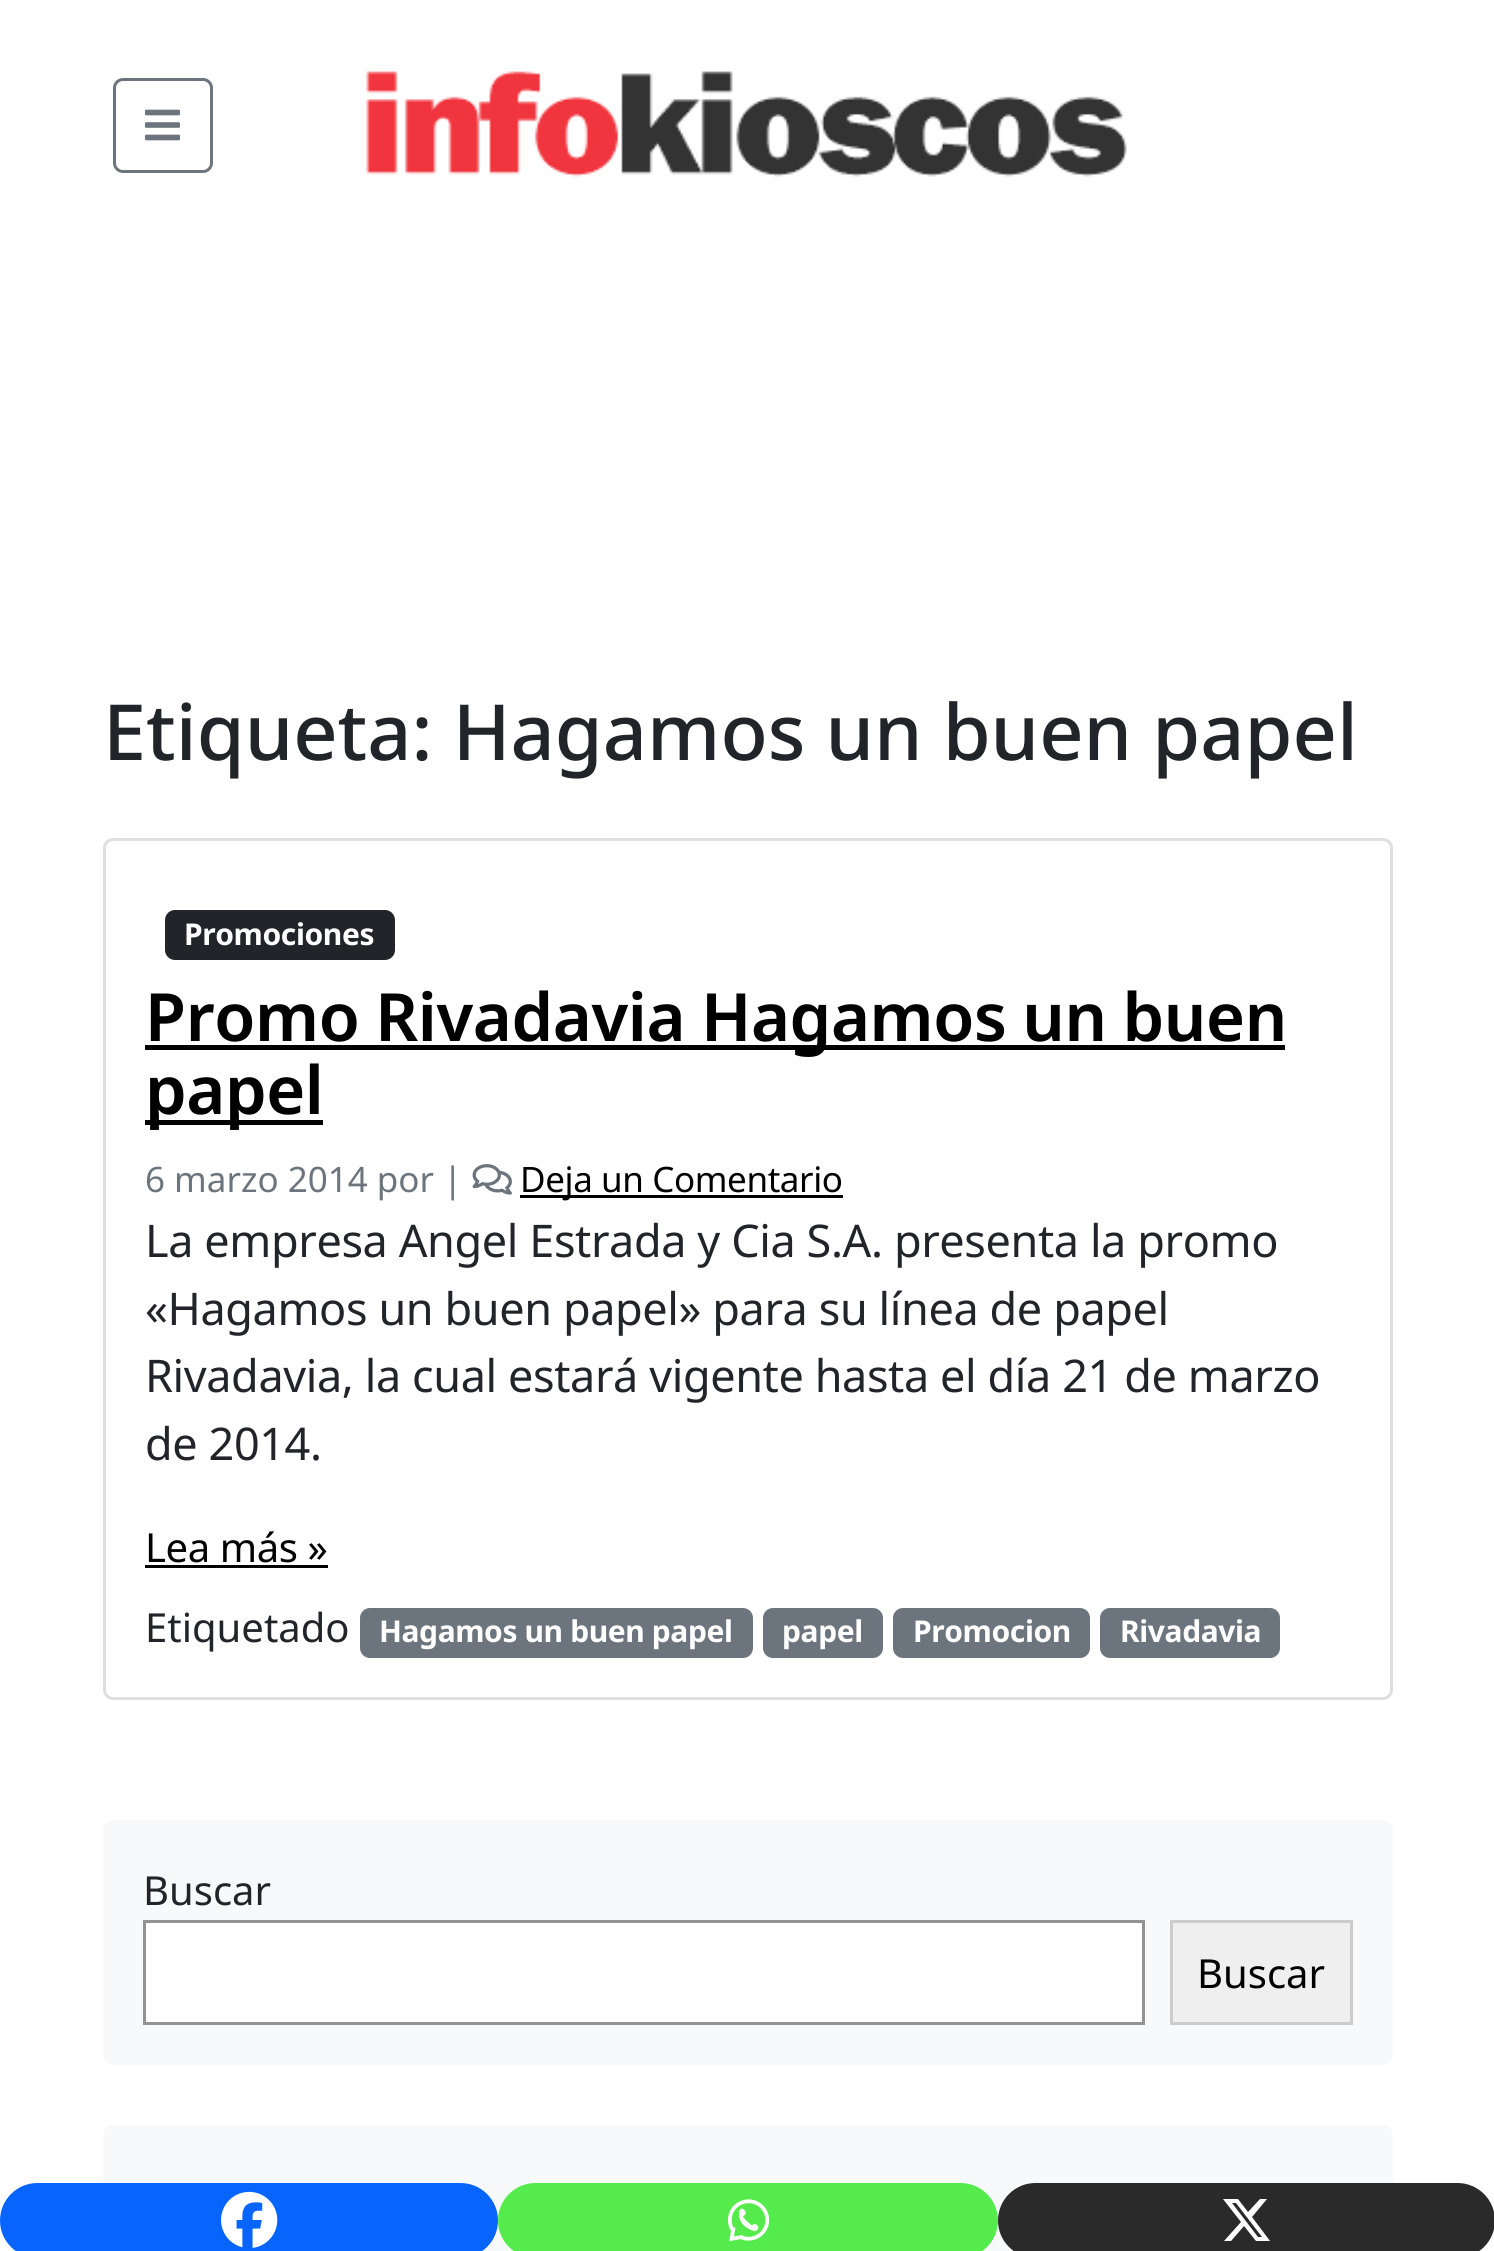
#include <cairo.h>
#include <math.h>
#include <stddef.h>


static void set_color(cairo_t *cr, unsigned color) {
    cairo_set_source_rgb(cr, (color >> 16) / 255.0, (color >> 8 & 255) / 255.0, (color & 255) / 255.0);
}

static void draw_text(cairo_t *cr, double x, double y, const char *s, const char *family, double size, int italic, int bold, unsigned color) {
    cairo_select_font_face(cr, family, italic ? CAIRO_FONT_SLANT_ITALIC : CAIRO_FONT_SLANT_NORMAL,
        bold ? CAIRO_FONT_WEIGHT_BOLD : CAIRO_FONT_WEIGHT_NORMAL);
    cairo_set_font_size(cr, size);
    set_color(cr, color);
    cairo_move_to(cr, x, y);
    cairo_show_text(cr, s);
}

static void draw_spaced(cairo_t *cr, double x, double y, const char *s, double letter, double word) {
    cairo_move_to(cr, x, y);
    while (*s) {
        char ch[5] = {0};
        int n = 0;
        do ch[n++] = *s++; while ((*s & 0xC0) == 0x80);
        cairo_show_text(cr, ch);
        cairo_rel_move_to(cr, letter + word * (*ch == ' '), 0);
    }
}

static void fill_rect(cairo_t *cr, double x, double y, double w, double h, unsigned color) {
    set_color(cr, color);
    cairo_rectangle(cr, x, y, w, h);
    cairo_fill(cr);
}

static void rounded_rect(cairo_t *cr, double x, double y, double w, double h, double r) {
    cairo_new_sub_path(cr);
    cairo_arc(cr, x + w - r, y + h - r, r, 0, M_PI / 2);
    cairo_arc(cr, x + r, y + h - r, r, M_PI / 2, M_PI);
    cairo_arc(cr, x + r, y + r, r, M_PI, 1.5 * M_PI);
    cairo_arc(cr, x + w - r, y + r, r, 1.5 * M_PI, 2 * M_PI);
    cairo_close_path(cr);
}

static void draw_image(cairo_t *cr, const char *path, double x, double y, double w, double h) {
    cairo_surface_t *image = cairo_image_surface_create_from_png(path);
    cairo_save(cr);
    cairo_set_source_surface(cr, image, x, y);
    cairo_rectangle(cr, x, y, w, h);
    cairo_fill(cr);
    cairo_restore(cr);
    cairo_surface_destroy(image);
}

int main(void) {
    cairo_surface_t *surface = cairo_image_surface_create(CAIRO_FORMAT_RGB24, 1494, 2251);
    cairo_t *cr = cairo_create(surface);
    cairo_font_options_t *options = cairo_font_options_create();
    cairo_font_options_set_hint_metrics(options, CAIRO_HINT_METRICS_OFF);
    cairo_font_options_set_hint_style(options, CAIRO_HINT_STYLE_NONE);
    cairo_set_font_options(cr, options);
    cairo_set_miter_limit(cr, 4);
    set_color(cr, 0xFFFFFF);
    cairo_paint(cr);
    rounded_rect(cr, 114.5, 79.5, 97, 92, 8.5);
    set_color(cr, 0x6C757D);
    cairo_set_line_width(cr, 3);
    cairo_stroke(cr);
    draw_image(cr, "assets/img1.png", 145, 109, 35, 32);
    draw_image(cr, "assets/img2.png", 366, 71, 761, 106);
    draw_text(cr, 103, 760, "Etiqueta: Hagamos un buen papel", "Noto Sans Medium", 77.4, 0, 0, 0x212529);
    rounded_rect(cr, 104.5, 839.5, 1287, 859, 8.5);
    set_color(cr, 0xDFDFDF);
    cairo_stroke(cr);
    set_color(cr, 0x212529);
    rounded_rect(cr, 165, 910, 230, 50, 10);
    cairo_fill(cr);
    cairo_select_font_face(cr, "Noto Sans", CAIRO_FONT_SLANT_NORMAL, CAIRO_FONT_WEIGHT_BOLD);
    cairo_set_font_size(cr, 30);
    set_color(cr, 0xFFFFFF);
    draw_spaced(cr, 184, 945, "Promociones", -0.4, 0);
    fill_rect(cr, 145, 1045, 1140, 5, 0x000000);
    cairo_select_font_face(cr, "Noto Sans SemiBold", CAIRO_FONT_SLANT_NORMAL, CAIRO_FONT_WEIGHT_NORMAL);
    cairo_set_font_size(cr, 66.5);
    draw_spaced(cr, 145, 1041, "Promo Rivadavia Hagamos un buen", -0.4, -1);
    fill_rect(cr, 145, 1120, 178, 5, 0x000000);
    draw_spaced(cr, 145, 1114, "papel", -0.4, 0);
    draw_text(cr, 145, 1192, "6 marzo 2014 por |", "Noto Sans", 35, 0, 0, 0x6C757D);
    draw_image(cr, "assets/img3.png", 472, 1164, 40, 31);
    fill_rect(cr, 520, 1195, 323, 3, 0x000000);
    draw_spaced(cr, 520, 1192, "Deja un Comentario", -0.4, 0);
    cairo_set_font_size(cr, 45);
    set_color(cr, 0x212529);
    draw_spaced(cr, 145, 1257, "La empresa Angel Estrada y Cia S.A. presenta la promo", -0.4, 0);
    draw_spaced(cr, 145, 1325, "«Hagamos un buen papel» para su línea de papel", -0.4, 0);
    draw_spaced(cr, 145, 1392, "Rivadavia, la cual estará vigente hasta el día 21 de marzo", -0.4, 0);
    draw_spaced(cr, 145, 1460, "de 2014.", -0.4, 0);
    cairo_set_font_size(cr, 40);
    set_color(cr, 0x000000);
    draw_spaced(cr, 145, 1562, "Lea más »", -0.4, 0);
    fill_rect(cr, 145, 1565, 183, 3, 0x000000);
    set_color(cr, 0xF8F9FA);
    rounded_rect(cr, 103, 2125, 1290, 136, 10);
    cairo_fill(cr);
    set_color(cr, 0x0765FE);
    rounded_rect(cr, 0, 2183, 498, 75, 37.5);
    cairo_fill(cr);
    draw_image(cr, "assets/img4.png", 221, 2191, 57, 57);
    set_color(cr, 0x55EB4C);
    rounded_rect(cr, 498, 2183, 500, 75, 37.5);
    cairo_fill(cr);
    draw_image(cr, "assets/img5.png", 727, 2199, 43, 42);
    set_color(cr, 0x2A2A2A);
    rounded_rect(cr, 998, 2183, 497, 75, 37.5);
    cairo_fill(cr);
    set_color(cr, 0xFFFFFF);
    cairo_new_path(cr);
    cairo_move_to(cr, 1260, 2199);
    cairo_line_to(cr, 1267, 2199);
    cairo_line_to(cr, 1252, 2217);
    cairo_line_to(cr, 1270, 2241);
    cairo_line_to(cr, 1256, 2241);
    cairo_line_to(cr, 1244, 2226);
    cairo_line_to(cr, 1231, 2241);
    cairo_line_to(cr, 1224, 2241);
    cairo_line_to(cr, 1241, 2222);
    cairo_line_to(cr, 1223, 2199);
    cairo_line_to(cr, 1238, 2199);
    cairo_line_to(cr, 1248, 2212);
    cairo_close_path(cr);
    cairo_move_to(cr, 1258, 2237);
    cairo_line_to(cr, 1262, 2237);
    cairo_line_to(cr, 1236, 2203);
    cairo_line_to(cr, 1232, 2203);
    cairo_close_path(cr);
    cairo_fill(cr);
    draw_text(cr, 145, 1642, "Etiquetado", "Noto Sans", 40, 0, 0, 0x212529);
    set_color(cr, 0x6C757D);
    rounded_rect(cr, 360, 1608, 393, 50, 10);
    cairo_fill(cr);
    cairo_select_font_face(cr, "Noto Sans", CAIRO_FONT_SLANT_NORMAL, CAIRO_FONT_WEIGHT_BOLD);
    cairo_set_font_size(cr, 30);
    set_color(cr, 0xFFFFFF);
    draw_spaced(cr, 379, 1642, "Hagamos un buen papel", -0.4, 0);
    set_color(cr, 0x6C757D);
    rounded_rect(cr, 763, 1608, 120, 50, 10);
    cairo_fill(cr);
    set_color(cr, 0xFFFFFF);
    draw_spaced(cr, 782, 1642, "papel", -0.4, 0);
    set_color(cr, 0x6C757D);
    rounded_rect(cr, 893, 1608, 197, 50, 10);
    cairo_fill(cr);
    set_color(cr, 0xFFFFFF);
    draw_spaced(cr, 913, 1642, "Promocion", -0.4, 0);
    set_color(cr, 0x6C757D);
    rounded_rect(cr, 1100, 1608, 180, 50, 10);
    cairo_fill(cr);
    set_color(cr, 0xFFFFFF);
    draw_spaced(cr, 1120, 1642, "Rivadavia", -0.4, 0);
    set_color(cr, 0xF8F9FA);
    rounded_rect(cr, 103, 1820, 1290, 245, 10);
    cairo_fill(cr);
    draw_text(cr, 143, 1905, "Buscar", "Noto Sans", 40, 0, 0, 0x212529);
    set_color(cr, 0xFFFFFF);
    cairo_rectangle(cr, 144.5, 1921.5, 999, 102);
    cairo_fill_preserve(cr);
    set_color(cr, 0x949494);
    cairo_stroke(cr);
    set_color(cr, 0xEFEFEF);
    cairo_rectangle(cr, 1171.5, 1921.5, 180, 102);
    cairo_fill_preserve(cr);
    set_color(cr, 0xCCCCCC);
    cairo_stroke(cr);
    draw_text(cr, 1197, 1988, "Buscar", "Noto Sans", 40, 0, 0, 0x000000);
    cairo_surface_write_to_png(surface, "output.png");
    cairo_font_options_destroy(options);
    cairo_destroy(cr);
    cairo_surface_destroy(surface);
    return 0;
}
